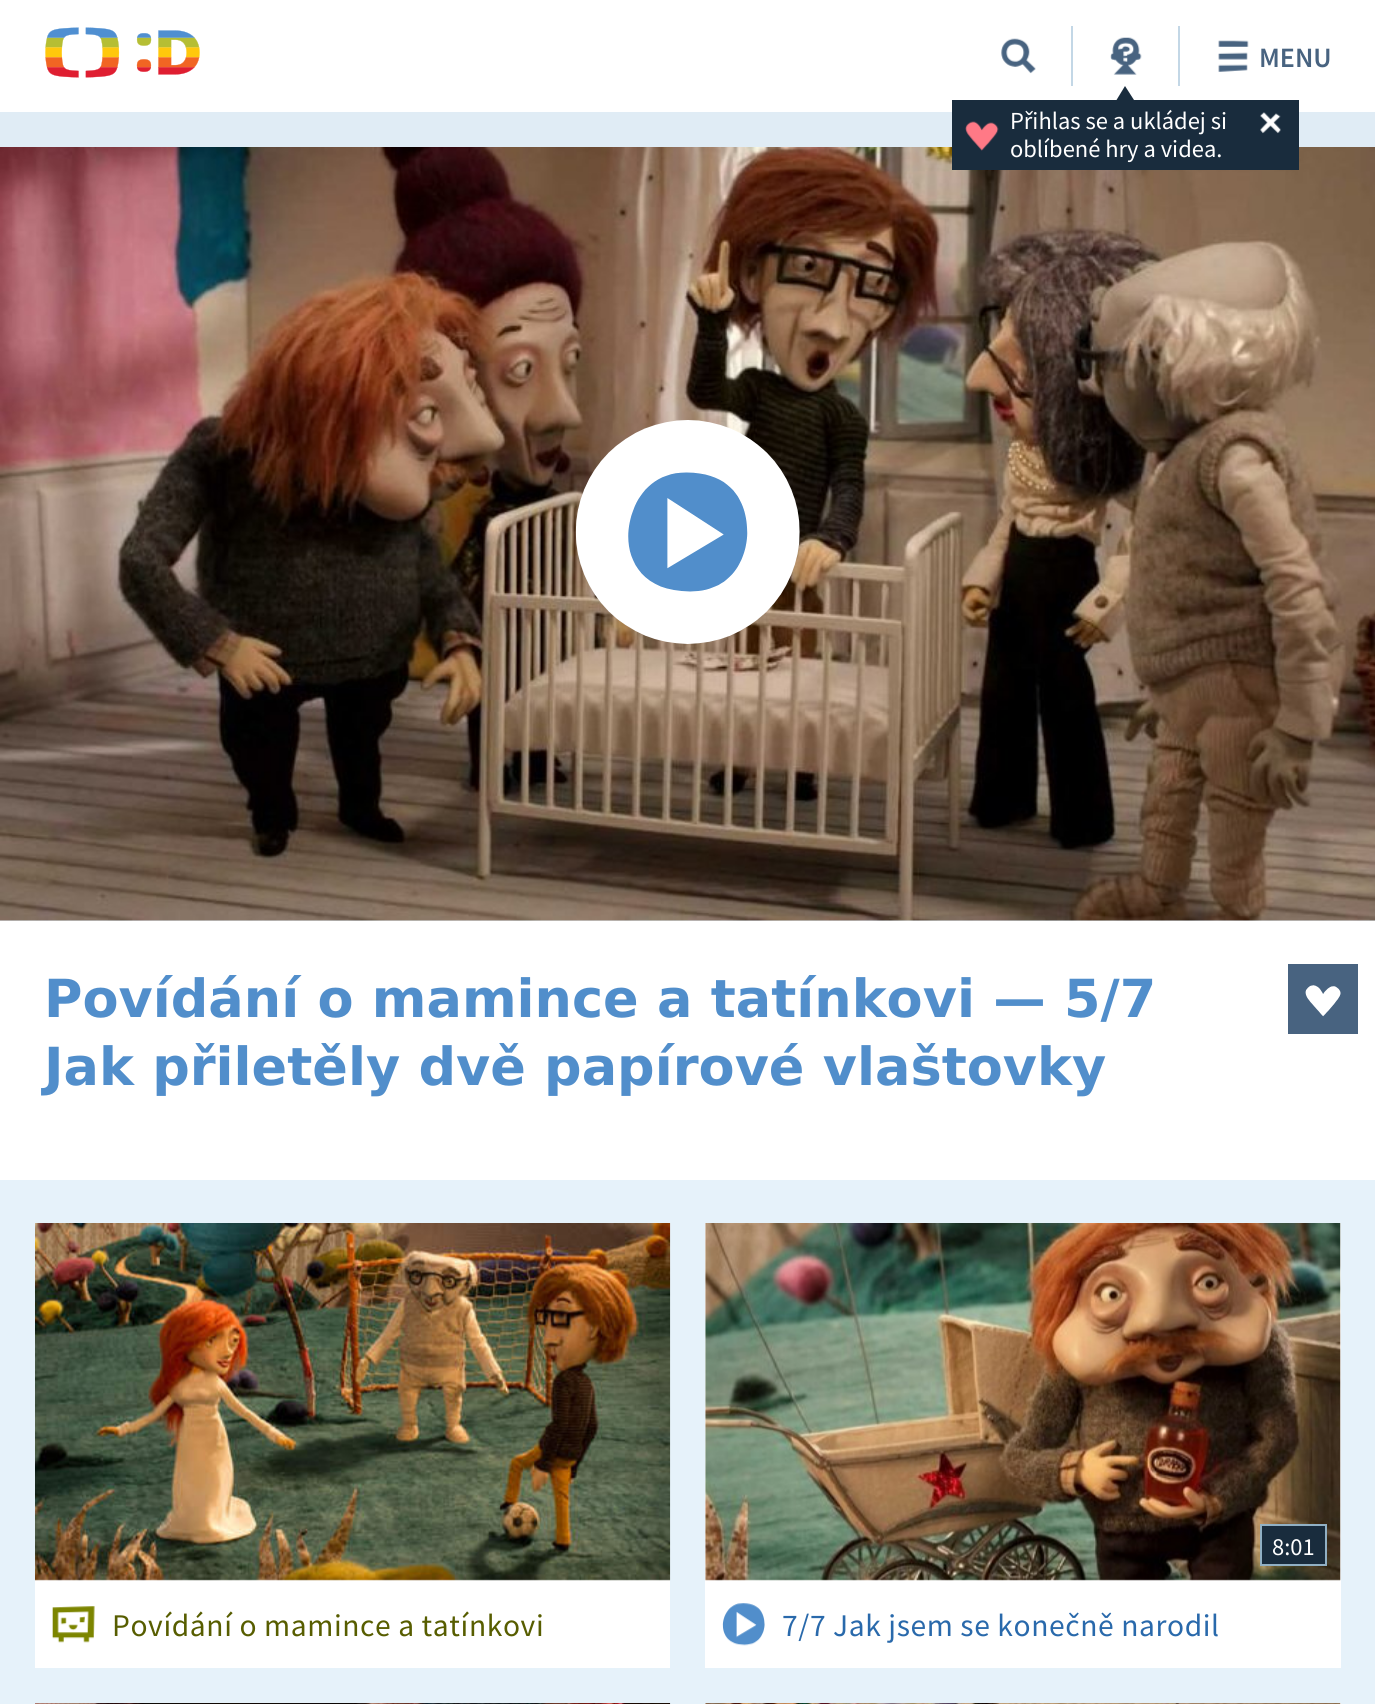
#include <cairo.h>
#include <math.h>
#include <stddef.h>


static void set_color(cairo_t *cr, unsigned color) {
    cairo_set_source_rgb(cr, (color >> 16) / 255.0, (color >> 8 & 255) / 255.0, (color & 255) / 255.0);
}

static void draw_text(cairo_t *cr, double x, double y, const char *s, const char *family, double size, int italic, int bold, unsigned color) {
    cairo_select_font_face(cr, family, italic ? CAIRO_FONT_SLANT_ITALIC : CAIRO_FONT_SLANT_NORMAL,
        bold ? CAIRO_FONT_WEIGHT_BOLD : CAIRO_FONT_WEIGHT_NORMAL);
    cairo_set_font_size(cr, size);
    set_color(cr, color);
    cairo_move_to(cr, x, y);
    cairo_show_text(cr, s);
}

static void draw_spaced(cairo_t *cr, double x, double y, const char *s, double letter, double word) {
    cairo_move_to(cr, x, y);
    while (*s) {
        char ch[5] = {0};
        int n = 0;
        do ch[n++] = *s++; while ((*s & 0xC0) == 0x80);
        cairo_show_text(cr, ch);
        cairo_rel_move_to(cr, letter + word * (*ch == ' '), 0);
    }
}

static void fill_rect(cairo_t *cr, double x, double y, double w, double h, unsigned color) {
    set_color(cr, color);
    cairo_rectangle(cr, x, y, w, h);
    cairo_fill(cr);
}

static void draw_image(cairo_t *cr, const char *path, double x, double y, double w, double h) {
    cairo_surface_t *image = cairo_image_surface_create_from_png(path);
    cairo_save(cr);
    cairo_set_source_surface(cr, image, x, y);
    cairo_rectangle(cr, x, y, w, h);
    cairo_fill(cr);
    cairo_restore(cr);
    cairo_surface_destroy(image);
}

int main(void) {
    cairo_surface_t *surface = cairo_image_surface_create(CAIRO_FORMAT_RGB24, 1375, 1704);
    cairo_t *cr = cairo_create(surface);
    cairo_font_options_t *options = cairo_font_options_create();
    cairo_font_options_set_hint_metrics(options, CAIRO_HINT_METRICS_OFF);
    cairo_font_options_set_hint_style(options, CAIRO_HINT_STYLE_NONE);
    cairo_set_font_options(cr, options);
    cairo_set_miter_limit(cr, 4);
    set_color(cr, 0xE0ECF5);
    cairo_paint(cr);
    fill_rect(cr, 0, 0, 1375, 112, 0xFFFFFF);
    draw_image(cr, "assets/img1.png", 45, 27, 155, 51);
    draw_image(cr, "assets/img2.png", 1001, 38, 35, 36);
    fill_rect(cr, 1178, 26, 2, 60, 0xC3D7E6);
    draw_image(cr, "assets/img3.png", 1218, 40, 31, 32);
    draw_text(cr, 1259, 67, "MENU", "Source Sans Pro SemiBold", 28, 0, 0, 0x486380);
    fill_rect(cr, 1071, 26, 2, 60, 0xC3D7E6);
    draw_image(cr, "assets/img4.png", 1110, 37, 32, 38);
    draw_image(cr, "assets/img7.png", 0, 147, 1375, 774);
    fill_rect(cr, 952, 100, 347, 70, 0x192C3D);
    cairo_new_path(cr);
    cairo_move_to(cr, 1134, 100);
    cairo_line_to(cr, 1116.5, 100);
    cairo_line_to(cr, 1125, 86);
    cairo_close_path(cr);
    cairo_fill(cr);
    draw_image(cr, "assets/img5.png", 965, 121, 34, 30);
    draw_text(cr, 1010, 129, "Přihlas se a ukládej si", "Source Sans Pro", 24.5, 0, 0, 0xFFFFFF);
    draw_text(cr, 1010, 157, "oblíbené hry a videa.", "Source Sans Pro", 24.5, 0, 0, 0xFFFFFF);
    draw_image(cr, "assets/img6.png", 1260, 112, 21, 22);
    draw_image(cr, "assets/img8.png", 575, 420, 225, 224);
    fill_rect(cr, 0, 921, 1375, 259, 0xFFFFFF);
    draw_text(cr, 44, 1017, "Povídání o mamince a tatínkovi — 5/7", "DejaVu Sans", 52.5, 0, 1, 0x518ECB);
    draw_text(cr, 44, 1085, "Jak přiletěly dvě papírové vlaštovky", "DejaVu Sans", 52.5, 0, 1, 0x518ECB);
    fill_rect(cr, 1288, 964, 70, 70, 0x486380);
    draw_image(cr, "assets/img9.png", 1305, 985, 36, 32);
    fill_rect(cr, 0, 1180, 1375, 524, 0xE6F2FA);
    fill_rect(cr, 35, 1580, 635, 88, 0xFFFFFF);
    draw_image(cr, "assets/img10.png", 35, 1223, 636, 358);
    draw_image(cr, "assets/img11.png", 52, 1606, 43, 37);
    cairo_select_font_face(cr, "Source Sans Pro", CAIRO_FONT_SLANT_NORMAL, CAIRO_FONT_WEIGHT_NORMAL);
    cairo_set_font_size(cr, 31.5);
    set_color(cr, 0x575D00);
    draw_spaced(cr, 112, 1636, "Povídání o mamince a tatínkovi", 0.6, 0);
    fill_rect(cr, 705, 1223, 636, 445, 0xFFFFFF);
    draw_image(cr, "assets/img12.png", 705, 1223, 636, 358);
    set_color(cr, 0x192C3D);
    cairo_rectangle(cr, 1261, 1525, 65, 40);
    cairo_fill_preserve(cr);
    set_color(cr, 0x91B0C4);
    cairo_stroke(cr);
    draw_text(cr, 1272, 1555, "8:01", "Source Sans Pro", 24.5, 0, 0, 0xFFFFFF);
    draw_image(cr, "assets/img13.png", 722, 1603, 43, 43);
    cairo_set_font_size(cr, 31.5);
    set_color(cr, 0x2969AB);
    draw_spaced(cr, 782, 1636, "7/7 Jak jsem se konečně narodil", 0.6, 0);
    draw_image(cr, "assets/img14.png", 35, 1703, 636, 1);
    fill_rect(cr, 705, 1703, 636, 1, 0xFFFFFF);
    draw_image(cr, "assets/img15.png", 705, 1703, 636, 1);
    cairo_surface_write_to_png(surface, "output.png");
    cairo_font_options_destroy(options);
    cairo_destroy(cr);
    cairo_surface_destroy(surface);
    return 0;
}
